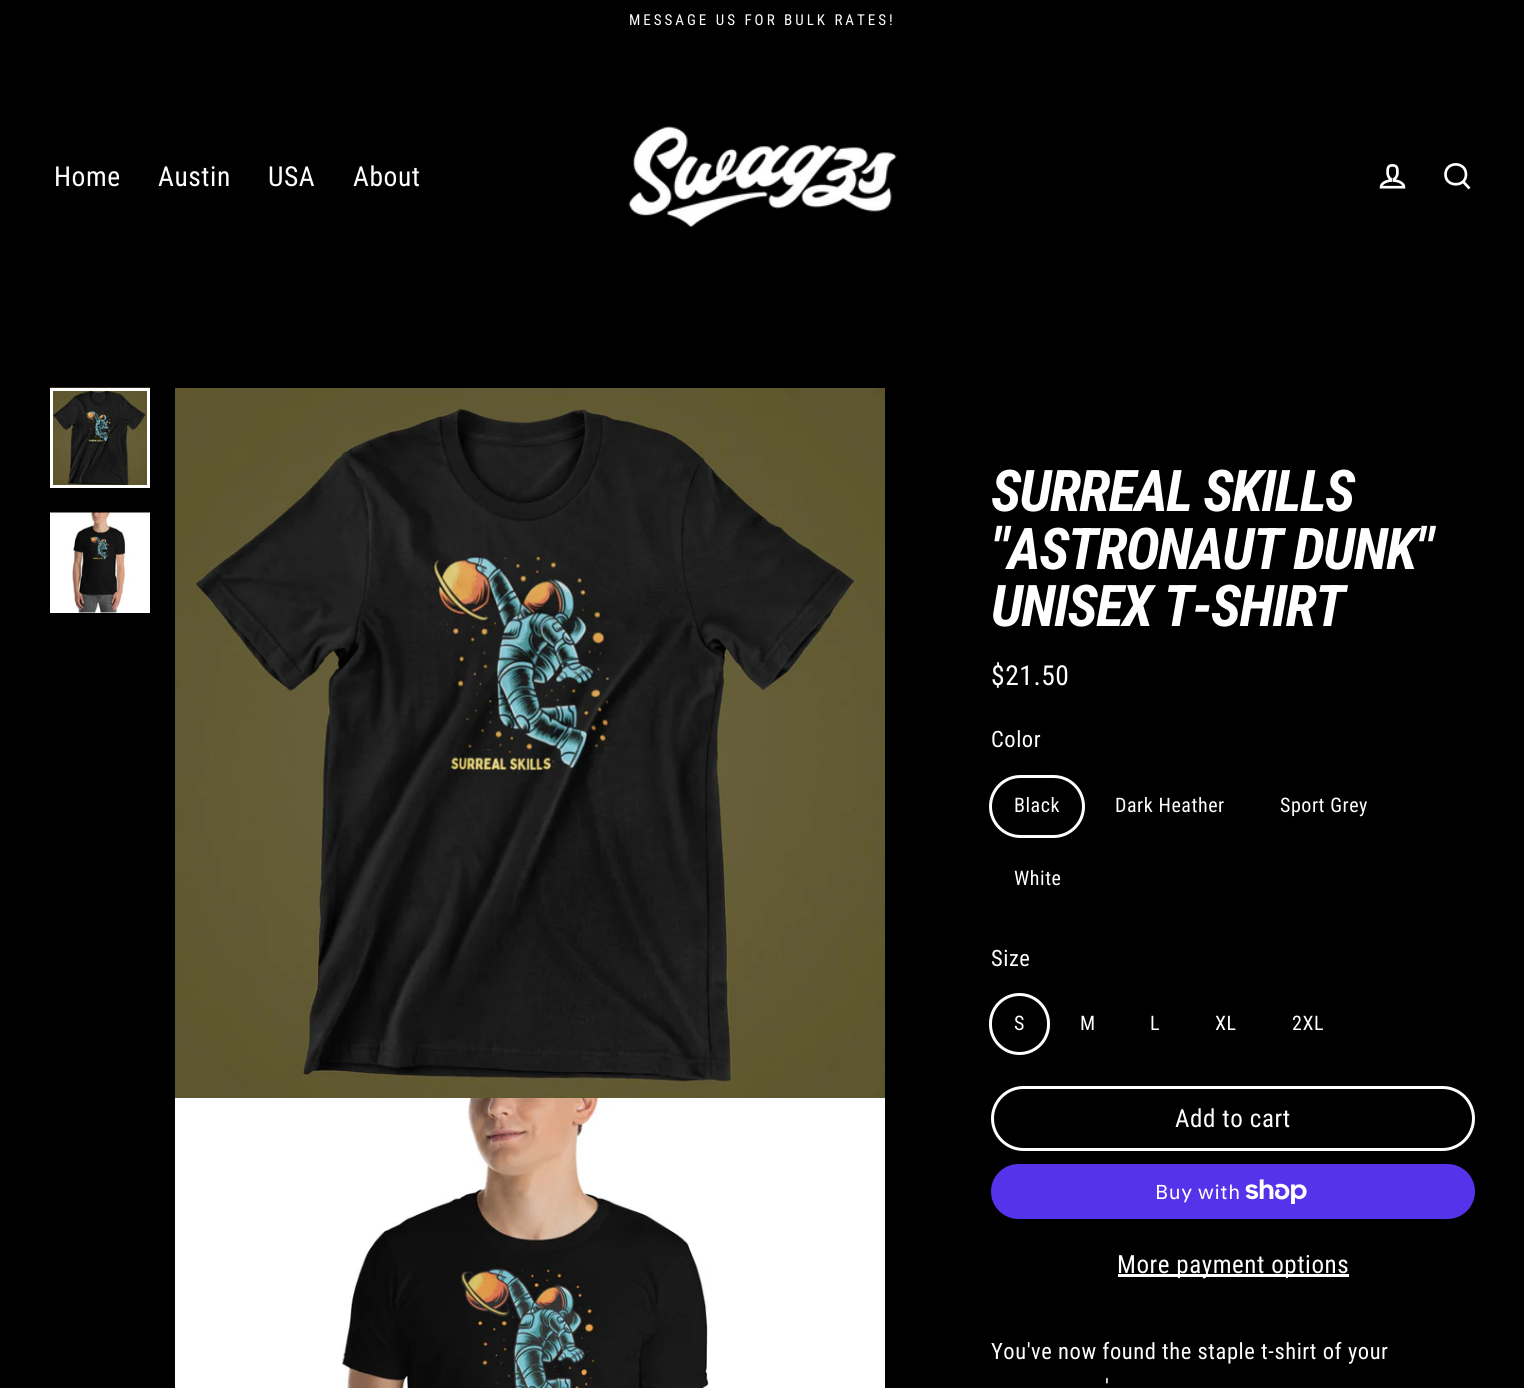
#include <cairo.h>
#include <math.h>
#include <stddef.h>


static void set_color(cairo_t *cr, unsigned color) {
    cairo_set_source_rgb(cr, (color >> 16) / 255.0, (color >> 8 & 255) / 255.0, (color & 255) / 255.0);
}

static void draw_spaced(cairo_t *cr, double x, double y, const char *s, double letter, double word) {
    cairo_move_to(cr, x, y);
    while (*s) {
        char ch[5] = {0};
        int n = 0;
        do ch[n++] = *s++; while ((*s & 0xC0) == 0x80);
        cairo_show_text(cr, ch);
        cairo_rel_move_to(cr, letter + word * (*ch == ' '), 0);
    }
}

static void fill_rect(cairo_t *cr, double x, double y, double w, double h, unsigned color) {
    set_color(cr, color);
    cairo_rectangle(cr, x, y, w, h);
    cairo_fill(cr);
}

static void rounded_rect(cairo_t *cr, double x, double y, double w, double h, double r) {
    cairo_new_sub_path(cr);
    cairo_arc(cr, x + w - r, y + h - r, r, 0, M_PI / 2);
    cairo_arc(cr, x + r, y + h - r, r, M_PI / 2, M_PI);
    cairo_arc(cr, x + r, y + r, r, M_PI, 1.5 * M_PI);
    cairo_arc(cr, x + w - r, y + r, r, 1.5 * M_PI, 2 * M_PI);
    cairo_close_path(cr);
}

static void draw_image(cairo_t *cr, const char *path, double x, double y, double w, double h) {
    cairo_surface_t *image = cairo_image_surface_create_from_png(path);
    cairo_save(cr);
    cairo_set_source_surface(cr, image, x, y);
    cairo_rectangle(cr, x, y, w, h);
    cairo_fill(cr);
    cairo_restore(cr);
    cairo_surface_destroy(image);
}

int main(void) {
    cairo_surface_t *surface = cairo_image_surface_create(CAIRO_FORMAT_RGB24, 1524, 1388);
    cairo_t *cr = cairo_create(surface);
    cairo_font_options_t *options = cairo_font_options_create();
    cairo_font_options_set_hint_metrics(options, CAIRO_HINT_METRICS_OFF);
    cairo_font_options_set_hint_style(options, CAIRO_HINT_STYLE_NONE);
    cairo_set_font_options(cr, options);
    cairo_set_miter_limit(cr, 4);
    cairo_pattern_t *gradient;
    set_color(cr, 0x000000);
    cairo_paint(cr);
    cairo_select_font_face(cr, "Roboto Condensed", CAIRO_FONT_SLANT_NORMAL, CAIRO_FONT_WEIGHT_NORMAL);
    cairo_set_font_size(cr, 15);
    set_color(cr, 0xFFFFFF);
    draw_spaced(cr, 629, 25, "MESSAGE US FOR BULK RATES!", 3, 0);
    cairo_set_font_size(cr, 27.5);
    draw_spaced(cr, 54, 186, "Home", 0.55, 0);
    draw_spaced(cr, 158, 186, "Austin", 0.55, 0);
    draw_spaced(cr, 268, 186, "USA", 0.55, 0);
    draw_spaced(cr, 353, 186, "About", 0.55, 0);
    draw_image(cr, "assets/img1.png", 628, 126, 269, 102);
    draw_image(cr, "assets/img2.png", 1379, 164, 27, 25);
    cairo_new_path(cr);
    cairo_move_to(cr, 1466, 174.5);
    cairo_curve_to(cr, 1466, 187.5, 1445.5, 187.5, 1445.5, 174.5);
    cairo_curve_to(cr, 1445.5, 161, 1466, 161, 1466, 174.5);
    cairo_close_path(cr);
    cairo_move_to(cr, 1469.5, 188.5);
    cairo_line_to(cr, 1463, 181.5);
    cairo_set_line_width(cr, 2.7);
    cairo_stroke(cr);
    draw_image(cr, "assets/img3.png", 50, 387, 100, 98);
    cairo_rectangle(cr, 51.5, 389.5, 97, 97);
    cairo_set_line_width(cr, 3);
    cairo_stroke(cr);
    gradient = cairo_pattern_create_linear(47, 527, 453, 598);
    cairo_pattern_add_color_stop_rgba(gradient, 0.4, 1, 1, 1, 1);
    cairo_pattern_add_color_stop_rgba(gradient, 0.63, 0.969, 0.969, 0.969, 1);
    cairo_pattern_add_color_stop_rgba(gradient, 0.79, 1, 1, 1, 1);
    cairo_set_source(cr, gradient);
    cairo_pattern_destroy(gradient);
    cairo_rectangle(cr, 50, 612, 100, 1);
    cairo_fill(cr);
    draw_image(cr, "assets/img4.png", 50, 512, 100, 101);
    draw_image(cr, "assets/img5.png", 175, 388, 710, 710);
    gradient = cairo_pattern_create_linear(157, 1199, 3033, 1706);
    cairo_pattern_add_color_stop_rgba(gradient, 0.4, 1, 1, 1, 1);
    cairo_pattern_add_color_stop_rgba(gradient, 0.63, 0.969, 0.969, 0.969, 1);
    cairo_pattern_add_color_stop_rgba(gradient, 0.79, 1, 1, 1, 1);
    cairo_set_source(cr, gradient);
    cairo_pattern_destroy(gradient);
    cairo_rectangle(cr, 175, 1098, 710, 290);
    cairo_fill(cr);
    draw_image(cr, "assets/img6.png", 341, 1098, 368, 290);
    cairo_select_font_face(cr, "Roboto Condensed", CAIRO_FONT_SLANT_ITALIC, CAIRO_FONT_WEIGHT_BOLD);
    cairo_set_font_size(cr, 57.5);
    set_color(cr, 0xFFFFFF);
    draw_spaced(cr, 991, 511, "SURREAL SKILLS", -1.5, 0);
    draw_spaced(cr, 991, 569, "\"ASTRONAUT DUNK\"", -1.5, 0);
    draw_spaced(cr, 991, 626, "UNISEX T-SHIRT", -1.5, 0);
    cairo_select_font_face(cr, "Roboto Condensed", CAIRO_FONT_SLANT_NORMAL, CAIRO_FONT_WEIGHT_NORMAL);
    cairo_set_font_size(cr, 27.5);
    draw_spaced(cr, 991, 685, "$21.50", 0.55, 0);
    cairo_set_font_size(cr, 22.5);
    draw_spaced(cr, 991, 747, "Color", 0.55, 0);
    rounded_rect(cr, 990.5, 776.5, 93, 60, 30);
    cairo_stroke(cr);
    cairo_set_font_size(cr, 20);
    draw_spaced(cr, 1014, 812, "Black", 0.55, 0);
    draw_spaced(cr, 1115, 812, "Dark Heather", 0.55, 0);
    draw_spaced(cr, 1280, 812, "Sport Grey", 0.55, 0);
    draw_spaced(cr, 1014, 885, "White", 0.55, 0);
    cairo_set_font_size(cr, 22.5);
    draw_spaced(cr, 991, 966, "Size", 0.55, 0);
    rounded_rect(cr, 990.5, 994.5, 58, 59, 29);
    cairo_stroke(cr);
    cairo_set_font_size(cr, 20);
    draw_spaced(cr, 1014, 1030, "S", 0.55, 0);
    draw_spaced(cr, 1080, 1030, "M", 0.55, 0);
    draw_spaced(cr, 1150, 1030, "L", 0.55, 0);
    draw_spaced(cr, 1215, 1030, "XL", 0.55, 0);
    draw_spaced(cr, 1292, 1030, "2XL", 0.55, 0);
    rounded_rect(cr, 992.5, 1087.5, 481, 62, 31);
    cairo_stroke(cr);
    cairo_set_font_size(cr, 25);
    draw_spaced(cr, 1175, 1127, "Add to cart", 0.6, 0);
    set_color(cr, 0x5433EB);
    rounded_rect(cr, 991, 1164, 484, 55, 27.5);
    cairo_fill(cr);
    cairo_select_font_face(cr, "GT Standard", CAIRO_FONT_SLANT_NORMAL, CAIRO_FONT_WEIGHT_NORMAL);
    cairo_set_font_size(cr, 20);
    set_color(cr, 0xFFFFFF);
    draw_spaced(cr, 1155, 1199, "Buy with", 0.55, 0);
    draw_image(cr, "assets/img7.png", 1245, 1179, 62, 25);
    fill_rect(cr, 1118, 1274, 231, 3, 0xFFFFFF);
    cairo_select_font_face(cr, "Roboto Condensed", CAIRO_FONT_SLANT_NORMAL, CAIRO_FONT_WEIGHT_NORMAL);
    cairo_set_font_size(cr, 25);
    draw_spaced(cr, 1117, 1273, "More payment options", 0.55, 0);
    cairo_set_font_size(cr, 22.5);
    draw_spaced(cr, 991, 1359, "You've now found the staple t-shirt of your", 0.55, 0);
    draw_spaced(cr, 1105, 1395, "'", 0.55, 0);
    cairo_surface_write_to_png(surface, "output.png");
    cairo_font_options_destroy(options);
    cairo_destroy(cr);
    cairo_surface_destroy(surface);
    return 0;
}
